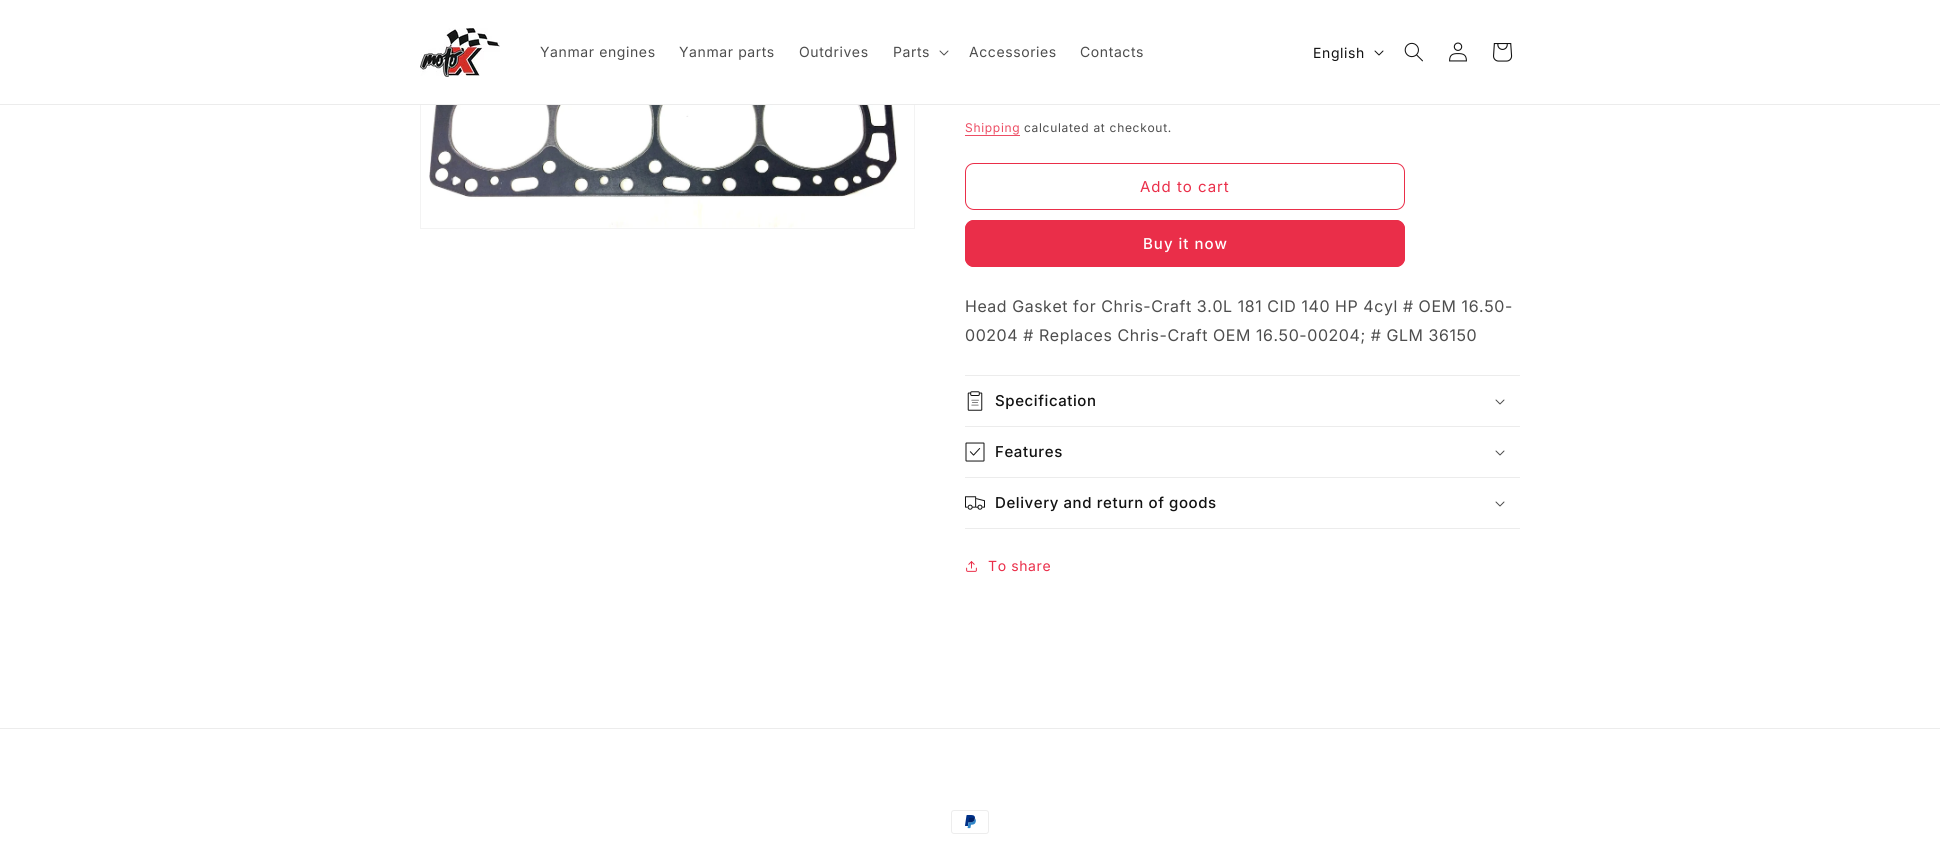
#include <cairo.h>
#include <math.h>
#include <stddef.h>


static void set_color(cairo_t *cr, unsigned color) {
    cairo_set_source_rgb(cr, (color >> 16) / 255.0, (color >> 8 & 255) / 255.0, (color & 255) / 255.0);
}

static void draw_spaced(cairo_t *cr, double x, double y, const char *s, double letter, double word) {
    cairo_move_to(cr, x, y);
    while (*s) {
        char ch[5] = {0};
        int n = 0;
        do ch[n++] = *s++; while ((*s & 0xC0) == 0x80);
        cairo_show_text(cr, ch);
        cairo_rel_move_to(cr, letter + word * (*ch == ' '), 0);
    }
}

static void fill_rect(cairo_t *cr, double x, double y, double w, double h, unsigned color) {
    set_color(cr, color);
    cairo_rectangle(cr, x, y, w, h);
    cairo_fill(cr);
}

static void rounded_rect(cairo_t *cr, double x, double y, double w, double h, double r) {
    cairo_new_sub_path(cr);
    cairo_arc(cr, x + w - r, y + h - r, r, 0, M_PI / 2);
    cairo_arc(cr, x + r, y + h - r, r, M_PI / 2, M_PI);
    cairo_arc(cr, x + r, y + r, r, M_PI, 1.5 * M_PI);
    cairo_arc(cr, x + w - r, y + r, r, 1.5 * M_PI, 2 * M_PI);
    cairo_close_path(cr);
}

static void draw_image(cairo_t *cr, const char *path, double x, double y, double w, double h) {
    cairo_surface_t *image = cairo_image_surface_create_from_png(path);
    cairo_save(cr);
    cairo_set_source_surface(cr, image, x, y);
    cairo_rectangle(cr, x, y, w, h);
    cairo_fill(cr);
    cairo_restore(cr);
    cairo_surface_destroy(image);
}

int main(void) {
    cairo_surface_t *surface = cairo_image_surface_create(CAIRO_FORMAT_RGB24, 1940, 845);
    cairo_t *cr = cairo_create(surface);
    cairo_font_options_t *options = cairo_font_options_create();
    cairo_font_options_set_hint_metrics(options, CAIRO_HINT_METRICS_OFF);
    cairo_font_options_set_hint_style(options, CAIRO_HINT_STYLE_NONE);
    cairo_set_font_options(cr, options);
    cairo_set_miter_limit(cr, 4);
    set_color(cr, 0xFFFFFF);
    cairo_paint(cr);
    cairo_rectangle(cr, 420.5, 30.5, 494, 198);
    set_color(cr, 0xF3F3F3);
    cairo_set_line_width(cr, 1);
    cairo_stroke(cr);
    fill_rect(cr, 420, 30, 495, 74, 0xFFFFFF);
    fill_rect(cr, 0, 104, 1940, 1, 0xECECEC);
    draw_image(cr, "assets/img1.png", 420, 28, 80, 49);
    cairo_select_font_face(cr, "Inter", CAIRO_FONT_SLANT_NORMAL, CAIRO_FONT_WEIGHT_NORMAL);
    cairo_set_font_size(cr, 14);
    set_color(cr, 0x4D4D4D);
    draw_spaced(cr, 540, 57, "Yanmar engines", 0.6, 0);
    draw_spaced(cr, 679, 57, "Yanmar parts", 0.6, 0);
    draw_spaced(cr, 799, 57, "Outdrives", 0.6, 0);
    draw_spaced(cr, 893, 57, "Parts", 0.6, 0);
    draw_image(cr, "assets/img2.png", 939, 50, 10, 6);
    draw_spaced(cr, 969, 57, "Accessories", 0.6, 0);
    draw_spaced(cr, 1080, 57, "Contacts", 0.6, 0);
    set_color(cr, 0x121212);
    draw_spaced(cr, 1313, 58, "English", 0.6, 0);
    draw_image(cr, "assets/img3.png", 1374, 50, 10, 6);
    draw_image(cr, "assets/img4.png", 1404, 42, 19, 20);
    draw_image(cr, "assets/img5.png", 1449, 42, 18, 20);
    draw_image(cr, "assets/img6.png", 1493, 43, 20, 19);
    draw_image(cr, "assets/img7.png", 429, 105, 469, 123);
    cairo_set_font_size(cr, 12);
    set_color(cr, 0xED4D64);
    draw_spaced(cr, 965, 132, "Shipping", 0.7, 0);
    fill_rect(cr, 965, 135, 55, 1, 0xED4D64);
    set_color(cr, 0x4D4D4D);
    draw_spaced(cr, 1024, 132, "calculated at checkout.", 0.7, 0);
    rounded_rect(cr, 965.5, 163.5, 439, 46, 8.5);
    set_color(cr, 0xEA2E49);
    cairo_stroke(cr);
    cairo_set_font_size(cr, 15);
    draw_spaced(cr, 1140, 192, "Add to cart", 1, 0);
    rounded_rect(cr, 965, 220, 440, 47, 9);
    cairo_fill(cr);
    rounded_rect(cr, 965.5, 220.5, 439, 46, 8.5);
    cairo_stroke(cr);
    cairo_select_font_face(cr, "Inter Medium", CAIRO_FONT_SLANT_NORMAL, CAIRO_FONT_WEIGHT_NORMAL);
    set_color(cr, 0xFFFFFF);
    draw_spaced(cr, 1143, 249, "Buy it now", 1, 0);
    cairo_select_font_face(cr, "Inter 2", CAIRO_FONT_SLANT_NORMAL, CAIRO_FONT_WEIGHT_NORMAL);
    cairo_set_font_size(cr, 16);
    set_color(cr, 0x4D4D4D);
    draw_spaced(cr, 965, 312, "Head Gasket for Chris-Craft 3.0L 181 CID 140 HP 4cyl # OEM 16.50-", 0.6, 0);
    draw_spaced(cr, 965, 341, "00204 # Replaces Chris-Craft OEM 16.50-00204; # GLM 36150", 0.6, 0);
    fill_rect(cr, 965, 375, 555, 1, 0xECECEC);
    fill_rect(cr, 965, 426, 555, 1, 0xECECEC);
    draw_image(cr, "assets/img8.png", 967, 391, 16, 20);
    cairo_select_font_face(cr, "Inter Medium", CAIRO_FONT_SLANT_NORMAL, CAIRO_FONT_WEIGHT_NORMAL);
    cairo_set_font_size(cr, 15);
    set_color(cr, 0x121212);
    draw_spaced(cr, 995, 406, "Specification", 0.6, 0);
    draw_image(cr, "assets/img2.png", 1495, 399, 10, 6);
    fill_rect(cr, 965, 477, 555, 1, 0xECECEC);
    draw_image(cr, "assets/img9.png", 965, 442, 20, 20);
    set_color(cr, 0x121212);
    draw_spaced(cr, 995, 457, "Features", 0.6, 0);
    draw_image(cr, "assets/img2.png", 1495, 450, 10, 6);
    fill_rect(cr, 965, 528, 555, 1, 0xECECEC);
    draw_image(cr, "assets/img10.png", 965, 496, 20, 14);
    set_color(cr, 0x121212);
    draw_spaced(cr, 995, 508, "Delivery and return of goods", 0.6, 0);
    draw_image(cr, "assets/img2.png", 1495, 501, 10, 6);
    draw_image(cr, "assets/img11.png", 966, 561, 11, 11);
    cairo_select_font_face(cr, "Inter", CAIRO_FONT_SLANT_NORMAL, CAIRO_FONT_WEIGHT_NORMAL);
    cairo_set_font_size(cr, 14);
    set_color(cr, 0xEA2E49);
    draw_spaced(cr, 988, 571, "To share", 0.6, 0);
    fill_rect(cr, 0, 728, 1940, 1, 0xECECEC);
    draw_image(cr, "assets/img12.png", 951, 810, 38, 24);
    cairo_surface_write_to_png(surface, "output.png");
    cairo_font_options_destroy(options);
    cairo_destroy(cr);
    cairo_surface_destroy(surface);
    return 0;
}
